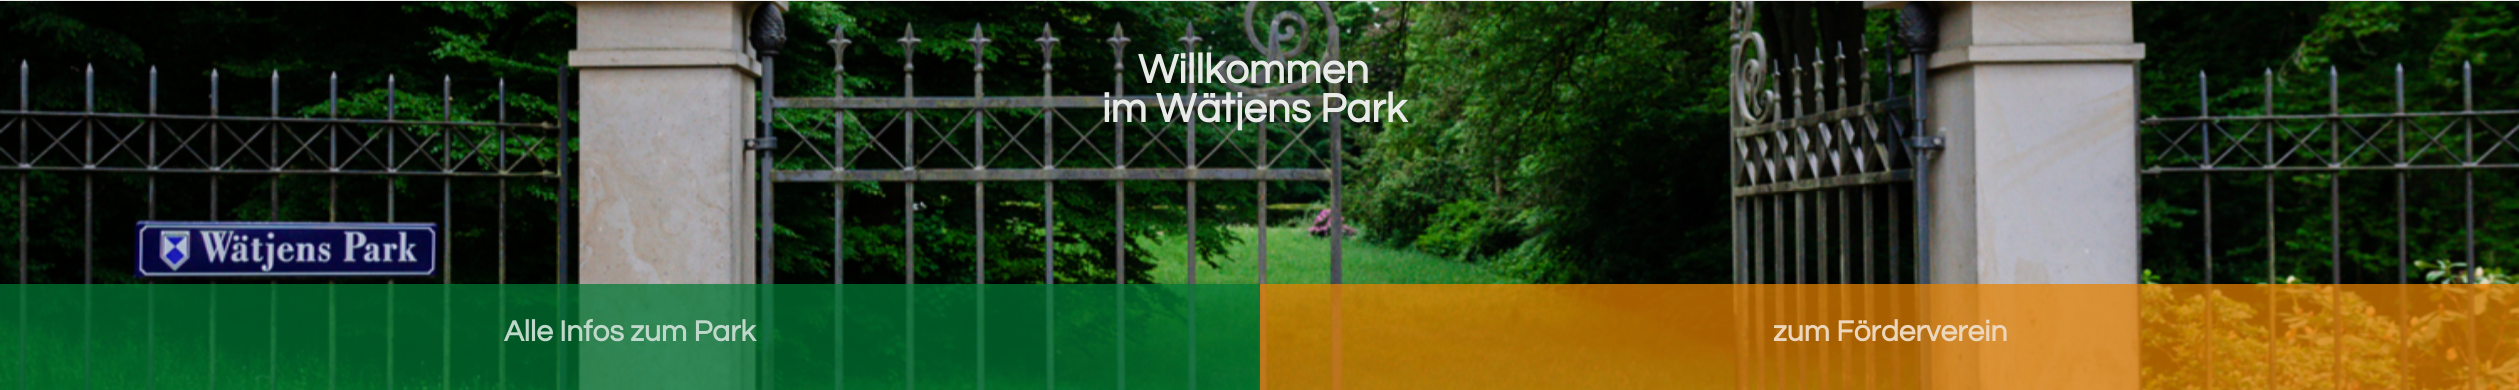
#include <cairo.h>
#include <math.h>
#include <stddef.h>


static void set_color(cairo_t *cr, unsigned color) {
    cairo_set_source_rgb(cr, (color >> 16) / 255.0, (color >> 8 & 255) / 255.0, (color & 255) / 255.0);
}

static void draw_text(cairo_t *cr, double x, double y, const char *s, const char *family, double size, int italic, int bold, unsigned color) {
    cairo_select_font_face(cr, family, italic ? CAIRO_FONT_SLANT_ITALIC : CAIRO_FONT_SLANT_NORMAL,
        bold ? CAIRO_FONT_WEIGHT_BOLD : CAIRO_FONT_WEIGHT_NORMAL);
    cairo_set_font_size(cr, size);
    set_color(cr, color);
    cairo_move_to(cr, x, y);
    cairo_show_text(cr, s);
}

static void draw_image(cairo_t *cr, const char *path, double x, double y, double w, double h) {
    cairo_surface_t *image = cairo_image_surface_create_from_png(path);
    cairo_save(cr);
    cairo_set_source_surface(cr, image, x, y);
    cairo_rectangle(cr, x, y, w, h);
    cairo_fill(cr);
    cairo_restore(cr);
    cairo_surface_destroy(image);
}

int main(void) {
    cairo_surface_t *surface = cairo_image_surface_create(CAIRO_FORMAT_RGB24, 2519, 390);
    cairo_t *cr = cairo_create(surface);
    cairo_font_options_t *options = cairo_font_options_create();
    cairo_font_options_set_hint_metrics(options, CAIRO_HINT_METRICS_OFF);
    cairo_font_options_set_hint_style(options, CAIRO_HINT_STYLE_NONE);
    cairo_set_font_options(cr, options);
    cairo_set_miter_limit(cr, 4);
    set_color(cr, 0xEBEBEB);
    cairo_paint(cr);
    draw_image(cr, "assets/img1.png", 0, 1, 2519, 389);
    draw_text(cr, 1138, 83, "Willkommen", "Questrial", 42, 0, 1, 0xE8EBE8);
    draw_text(cr, 1102, 122, "im Wätjens Park", "Questrial", 42, 0, 1, 0xE8EBE8);
    cairo_set_source_rgba(cr, 0, 0.475, 0.204, 0.72);
    cairo_rectangle(cr, 0, 284, 1260, 106);
    cairo_fill(cr);
    draw_text(cr, 504, 341, "Alle Infos zum Park", "Questrial", 30, 0, 1, 0xBFD8CA);
    cairo_set_source_rgba(cr, 0.91, 0.514, 0.004, 0.72);
    cairo_rectangle(cr, 1260, 284, 1259, 106);
    cairo_fill(cr);
    draw_text(cr, 1773, 341, "zum Förderverein", "Questrial", 30, 0, 1, 0xECD7BC);
    cairo_surface_write_to_png(surface, "output.png");
    cairo_font_options_destroy(options);
    cairo_destroy(cr);
    cairo_surface_destroy(surface);
    return 0;
}
